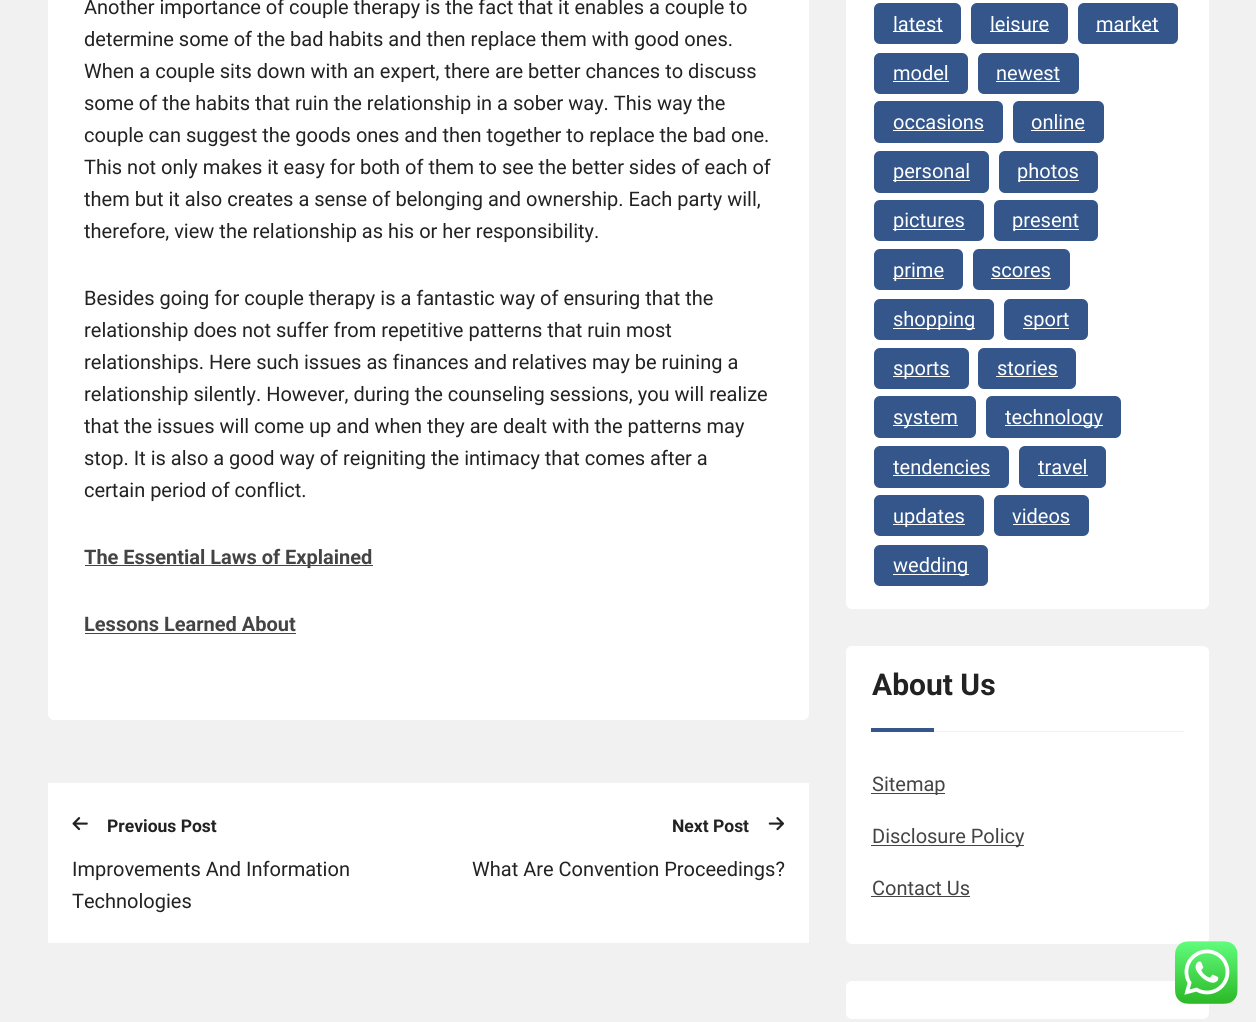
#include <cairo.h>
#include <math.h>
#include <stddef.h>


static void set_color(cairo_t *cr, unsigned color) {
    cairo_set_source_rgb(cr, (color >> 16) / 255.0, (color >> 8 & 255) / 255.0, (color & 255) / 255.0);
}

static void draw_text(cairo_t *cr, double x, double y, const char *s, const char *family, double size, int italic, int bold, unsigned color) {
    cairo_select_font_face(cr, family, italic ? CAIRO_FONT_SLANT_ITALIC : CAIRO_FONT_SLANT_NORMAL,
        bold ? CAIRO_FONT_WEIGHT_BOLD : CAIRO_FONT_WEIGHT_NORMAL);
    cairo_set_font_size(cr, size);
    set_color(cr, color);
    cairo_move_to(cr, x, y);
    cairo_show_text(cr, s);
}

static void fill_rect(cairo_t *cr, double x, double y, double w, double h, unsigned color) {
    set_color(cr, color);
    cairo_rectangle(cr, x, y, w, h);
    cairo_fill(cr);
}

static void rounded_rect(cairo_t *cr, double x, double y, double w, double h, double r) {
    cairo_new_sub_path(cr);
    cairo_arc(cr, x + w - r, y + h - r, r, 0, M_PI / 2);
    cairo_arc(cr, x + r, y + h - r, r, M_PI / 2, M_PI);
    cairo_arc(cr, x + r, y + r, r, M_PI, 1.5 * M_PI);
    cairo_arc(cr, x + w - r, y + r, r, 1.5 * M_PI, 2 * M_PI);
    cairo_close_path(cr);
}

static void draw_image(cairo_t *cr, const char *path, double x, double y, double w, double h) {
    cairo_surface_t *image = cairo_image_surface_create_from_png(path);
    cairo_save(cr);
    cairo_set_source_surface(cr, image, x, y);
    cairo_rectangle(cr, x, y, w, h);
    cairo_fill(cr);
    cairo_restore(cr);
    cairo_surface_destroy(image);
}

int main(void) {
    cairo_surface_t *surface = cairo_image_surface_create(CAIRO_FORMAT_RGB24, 1256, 1022);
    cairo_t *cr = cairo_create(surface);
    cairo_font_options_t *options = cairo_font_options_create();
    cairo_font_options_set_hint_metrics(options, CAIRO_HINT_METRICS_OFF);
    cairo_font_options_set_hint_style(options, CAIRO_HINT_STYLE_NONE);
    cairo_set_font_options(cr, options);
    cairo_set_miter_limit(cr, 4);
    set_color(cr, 0xF1F1F1);
    cairo_paint(cr);
    set_color(cr, 0xFFFFFF);
    rounded_rect(cr, 48, -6, 761, 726, 6);
    cairo_fill(cr);
    draw_text(cr, 84, 14, "Another importance of couple therapy is the fact that it enables a couple to", "Roboto", 20, 0, 0, 0x222222);
    draw_text(cr, 84, 46, "determine some of the bad habits and then replace them with good ones.", "Roboto", 20, 0, 0, 0x222222);
    draw_text(cr, 84, 78, "When a couple sits down with an expert, there are better chances to discuss", "Roboto", 20, 0, 0, 0x222222);
    draw_text(cr, 84, 110, "some of the habits that ruin the relationship in a sober way. This way the", "Roboto", 20, 0, 0, 0x222222);
    draw_text(cr, 84, 142, "couple can suggest the goods ones and then together to replace the bad one.", "Roboto", 20, 0, 0, 0x222222);
    draw_text(cr, 84, 174, "This not only makes it easy for both of them to see the better sides of each of", "Roboto", 20, 0, 0, 0x222222);
    draw_text(cr, 84, 206, "them but it also creates a sense of belonging and ownership. Each party will,", "Roboto", 20, 0, 0, 0x222222);
    draw_text(cr, 84, 238, "therefore, view the relationship as his or her responsibility.", "Roboto", 20, 0, 0, 0x222222);
    draw_text(cr, 84, 305, "Besides going for couple therapy is a fantastic way of ensuring that the", "Roboto", 20, 0, 0, 0x222222);
    draw_text(cr, 84, 337, "relationship does not suffer from repetitive patterns that ruin most", "Roboto", 20, 0, 0, 0x222222);
    draw_text(cr, 84, 369, "relationships. Here such issues as finances and relatives may be ruining a", "Roboto", 20, 0, 0, 0x222222);
    draw_text(cr, 84, 401, "relationship silently. However, during the counseling sessions, you will realize", "Roboto", 20, 0, 0, 0x222222);
    draw_text(cr, 84, 433, "that the issues will come up and when they are dealt with the patterns may", "Roboto", 20, 0, 0, 0x222222);
    draw_text(cr, 84, 465, "stop. It is also a good way of reigniting the intimacy that comes after a", "Roboto", 20, 0, 0, 0x222222);
    draw_text(cr, 84, 497, "certain period of conflict.", "Roboto", 20, 0, 0, 0x222222);
    fill_rect(cr, 85, 565, 288, 1, 0x444444);
    draw_text(cr, 84, 564, "The Essential Laws of Explained", "Roboto", 20, 0, 1, 0x444444);
    draw_text(cr, 84, 631, "Lessons Learned About", "Roboto", 20, 0, 1, 0x444444);
    fill_rect(cr, 85, 633, 211, 1, 0x444444);
    fill_rect(cr, 48, 783, 761, 160, 0xFFFFFF);
    draw_image(cr, "assets/img1.png", 72, 817, 16, 14);
    draw_text(cr, 107, 832, "Previous Post", "Roboto", 17.5, 0, 1, 0x222222);
    draw_text(cr, 72, 876, "Improvements And Information", "Roboto", 20, 0, 0, 0x222222);
    draw_text(cr, 72, 908, "Technologies", "Roboto", 20, 0, 0, 0x222222);
    draw_text(cr, 672, 832, "Next Post", "Roboto", 17.5, 0, 1, 0x222222);
    draw_image(cr, "assets/img2.png", 768, 817, 16, 14);
    draw_text(cr, 472, 876, "What Are Convention Proceedings?", "Roboto", 20, 0, 0, 0x222222);
    set_color(cr, 0xFFFFFF);
    rounded_rect(cr, 846, -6, 363, 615, 6);
    cairo_fill(cr);
    set_color(cr, 0x34568B);
    rounded_rect(cr, 874, 3, 87, 41, 6);
    cairo_fill(cr);
    fill_rect(cr, 893, 31, 50, 1, 0xFFFFFF);
    draw_text(cr, 893, 31, "latest", "Roboto", 20, 0, 0, 0xFFFFFF);
    set_color(cr, 0x34568B);
    rounded_rect(cr, 971, 3, 97, 41, 6);
    cairo_fill(cr);
    fill_rect(cr, 990, 31, 59, 1, 0xFFFFFF);
    draw_text(cr, 990, 31, "leisure", "Roboto", 20, 0, 0, 0xFFFFFF);
    set_color(cr, 0x34568B);
    rounded_rect(cr, 1078, 3, 100, 41, 6);
    cairo_fill(cr);
    fill_rect(cr, 1096, 31, 63, 1, 0xFFFFFF);
    draw_text(cr, 1096, 31, "market", "Roboto", 20, 0, 0, 0xFFFFFF);
    set_color(cr, 0x34568B);
    rounded_rect(cr, 874, 53, 94, 41, 6);
    cairo_fill(cr);
    draw_text(cr, 893, 80, "model", "Roboto", 20, 0, 0, 0xFFFFFF);
    fill_rect(cr, 893, 81, 56, 1, 0xFFFFFF);
    set_color(cr, 0x34568B);
    rounded_rect(cr, 978, 53, 101, 41, 6);
    cairo_fill(cr);
    draw_text(cr, 996, 80, "newest", "Roboto", 20, 0, 0, 0xFFFFFF);
    fill_rect(cr, 996, 81, 64, 1, 0xFFFFFF);
    set_color(cr, 0x34568B);
    rounded_rect(cr, 874, 101, 129, 42, 6);
    cairo_fill(cr);
    draw_text(cr, 893, 129, "occasions", "Roboto", 20, 0, 0, 0xFFFFFF);
    fill_rect(cr, 893, 130, 91, 1, 0xFFFFFF);
    set_color(cr, 0x34568B);
    rounded_rect(cr, 1013, 101, 91, 42, 6);
    cairo_fill(cr);
    draw_text(cr, 1031, 129, "online", "Roboto", 20, 0, 0, 0xFFFFFF);
    fill_rect(cr, 1031, 130, 54, 1, 0xFFFFFF);
    set_color(cr, 0x34568B);
    rounded_rect(cr, 874, 151, 115, 42, 6);
    cairo_fill(cr);
    fill_rect(cr, 893, 180, 77, 1, 0xFFFFFF);
    draw_text(cr, 893, 178, "personal", "Roboto", 20, 0, 0, 0xFFFFFF);
    set_color(cr, 0x34568B);
    rounded_rect(cr, 999, 151, 99, 42, 6);
    cairo_fill(cr);
    fill_rect(cr, 1018, 180, 61, 1, 0xFFFFFF);
    draw_text(cr, 1017, 178, "photos", "Roboto", 20, 0, 0, 0xFFFFFF);
    set_color(cr, 0x34568B);
    rounded_rect(cr, 874, 200, 110, 41, 6);
    cairo_fill(cr);
    fill_rect(cr, 893, 229, 72, 1, 0xFFFFFF);
    draw_text(cr, 893, 227, "pictures", "Roboto", 20, 0, 0, 0xFFFFFF);
    set_color(cr, 0x34568B);
    rounded_rect(cr, 994, 200, 104, 41, 6);
    cairo_fill(cr);
    fill_rect(cr, 1013, 229, 66, 1, 0xFFFFFF);
    draw_text(cr, 1012, 227, "present", "Roboto", 20, 0, 0, 0xFFFFFF);
    set_color(cr, 0x34568B);
    rounded_rect(cr, 874, 249, 89, 41, 6);
    cairo_fill(cr);
    fill_rect(cr, 893, 278, 51, 1, 0xFFFFFF);
    draw_text(cr, 893, 277, "prime", "Roboto", 20, 0, 0, 0xFFFFFF);
    set_color(cr, 0x34568B);
    rounded_rect(cr, 973, 249, 97, 41, 6);
    cairo_fill(cr);
    draw_text(cr, 991, 277, "scores", "Roboto", 20, 0, 0, 0xFFFFFF);
    fill_rect(cr, 991, 278, 60, 1, 0xFFFFFF);
    set_color(cr, 0x34568B);
    rounded_rect(cr, 874, 299, 120, 41, 6);
    cairo_fill(cr);
    fill_rect(cr, 893, 328, 82, 1, 0xFFFFFF);
    draw_text(cr, 893, 326, "shopping", "Roboto", 20, 0, 0, 0xFFFFFF);
    set_color(cr, 0x34568B);
    rounded_rect(cr, 1004, 299, 84, 41, 6);
    cairo_fill(cr);
    fill_rect(cr, 1023, 328, 46, 1, 0xFFFFFF);
    draw_text(cr, 1023, 326, "sport", "Roboto", 20, 0, 0, 0xFFFFFF);
    set_color(cr, 0x34568B);
    rounded_rect(cr, 874, 348, 95, 41, 6);
    cairo_fill(cr);
    fill_rect(cr, 893, 376, 57, 1, 0xFFFFFF);
    draw_text(cr, 893, 375, "sports", "Roboto", 20, 0, 0, 0xFFFFFF);
    set_color(cr, 0x34568B);
    rounded_rect(cr, 978, 348, 98, 41, 6);
    cairo_fill(cr);
    draw_text(cr, 997, 375, "stories", "Roboto", 20, 0, 0, 0xFFFFFF);
    fill_rect(cr, 996, 376, 62, 1, 0xFFFFFF);
    set_color(cr, 0x34568B);
    rounded_rect(cr, 874, 396, 102, 42, 6);
    cairo_fill(cr);
    fill_rect(cr, 893, 425, 65, 1, 0xFFFFFF);
    draw_text(cr, 893, 424, "system", "Roboto", 20, 0, 0, 0xFFFFFF);
    set_color(cr, 0x34568B);
    rounded_rect(cr, 986, 396, 135, 42, 6);
    cairo_fill(cr);
    fill_rect(cr, 1005, 425, 98, 1, 0xFFFFFF);
    draw_text(cr, 1005, 424, "technology", "Roboto", 20, 0, 0, 0xFFFFFF);
    set_color(cr, 0x34568B);
    rounded_rect(cr, 874, 446, 135, 42, 6);
    cairo_fill(cr);
    draw_text(cr, 893, 474, "tendencies", "Roboto", 20, 0, 0, 0xFFFFFF);
    fill_rect(cr, 893, 475, 97, 1, 0xFFFFFF);
    set_color(cr, 0x34568B);
    rounded_rect(cr, 1019, 446, 87, 42, 6);
    cairo_fill(cr);
    draw_text(cr, 1038, 474, "travel", "Roboto", 20, 0, 0, 0xFFFFFF);
    fill_rect(cr, 1038, 475, 50, 1, 0xFFFFFF);
    set_color(cr, 0x34568B);
    rounded_rect(cr, 874, 495, 110, 41, 6);
    cairo_fill(cr);
    fill_rect(cr, 893, 524, 72, 1, 0xFFFFFF);
    draw_text(cr, 893, 523, "updates", "Roboto", 20, 0, 0, 0xFFFFFF);
    set_color(cr, 0x34568B);
    rounded_rect(cr, 994, 495, 95, 41, 6);
    cairo_fill(cr);
    draw_text(cr, 1012, 523, "videos", "Roboto", 20, 0, 0, 0xFFFFFF);
    fill_rect(cr, 1013, 524, 57, 1, 0xFFFFFF);
    set_color(cr, 0x34568B);
    rounded_rect(cr, 874, 545, 114, 41, 6);
    cairo_fill(cr);
    fill_rect(cr, 893, 574, 76, 1, 0xFFFFFF);
    draw_text(cr, 893, 572, "wedding", "Roboto", 20, 0, 0, 0xFFFFFF);
    rounded_rect(cr, 846, 646, 363, 298, 6);
    cairo_fill(cr);
    fill_rect(cr, 934, 731, 250, 1, 0xF1F1F1);
    draw_text(cr, 872, 695, "About Us", "Roboto", 30, 0, 1, 0x222222);
    fill_rect(cr, 871, 728, 63, 4, 0x34568B);
    fill_rect(cr, 871, 793, 74, 1, 0x444444);
    draw_text(cr, 872, 791, "Sitemap", "Roboto", 20, 0, 0, 0x444444);
    fill_rect(cr, 871, 845, 153, 1, 0x444444);
    draw_text(cr, 872, 843, "Disclosure Policy", "Roboto", 20, 0, 0, 0x444444);
    draw_text(cr, 872, 895, "Contact Us", "Roboto", 20, 0, 0, 0x444444);
    fill_rect(cr, 871, 896, 99, 1, 0x444444);
    set_color(cr, 0xFFFFFF);
    rounded_rect(cr, 846, 981, 363, 38, 6);
    cairo_fill(cr);
    draw_image(cr, "assets/img3.png", 1175, 941, 63, 63);
    cairo_surface_write_to_png(surface, "output.png");
    cairo_font_options_destroy(options);
    cairo_destroy(cr);
    cairo_surface_destroy(surface);
    return 0;
}
